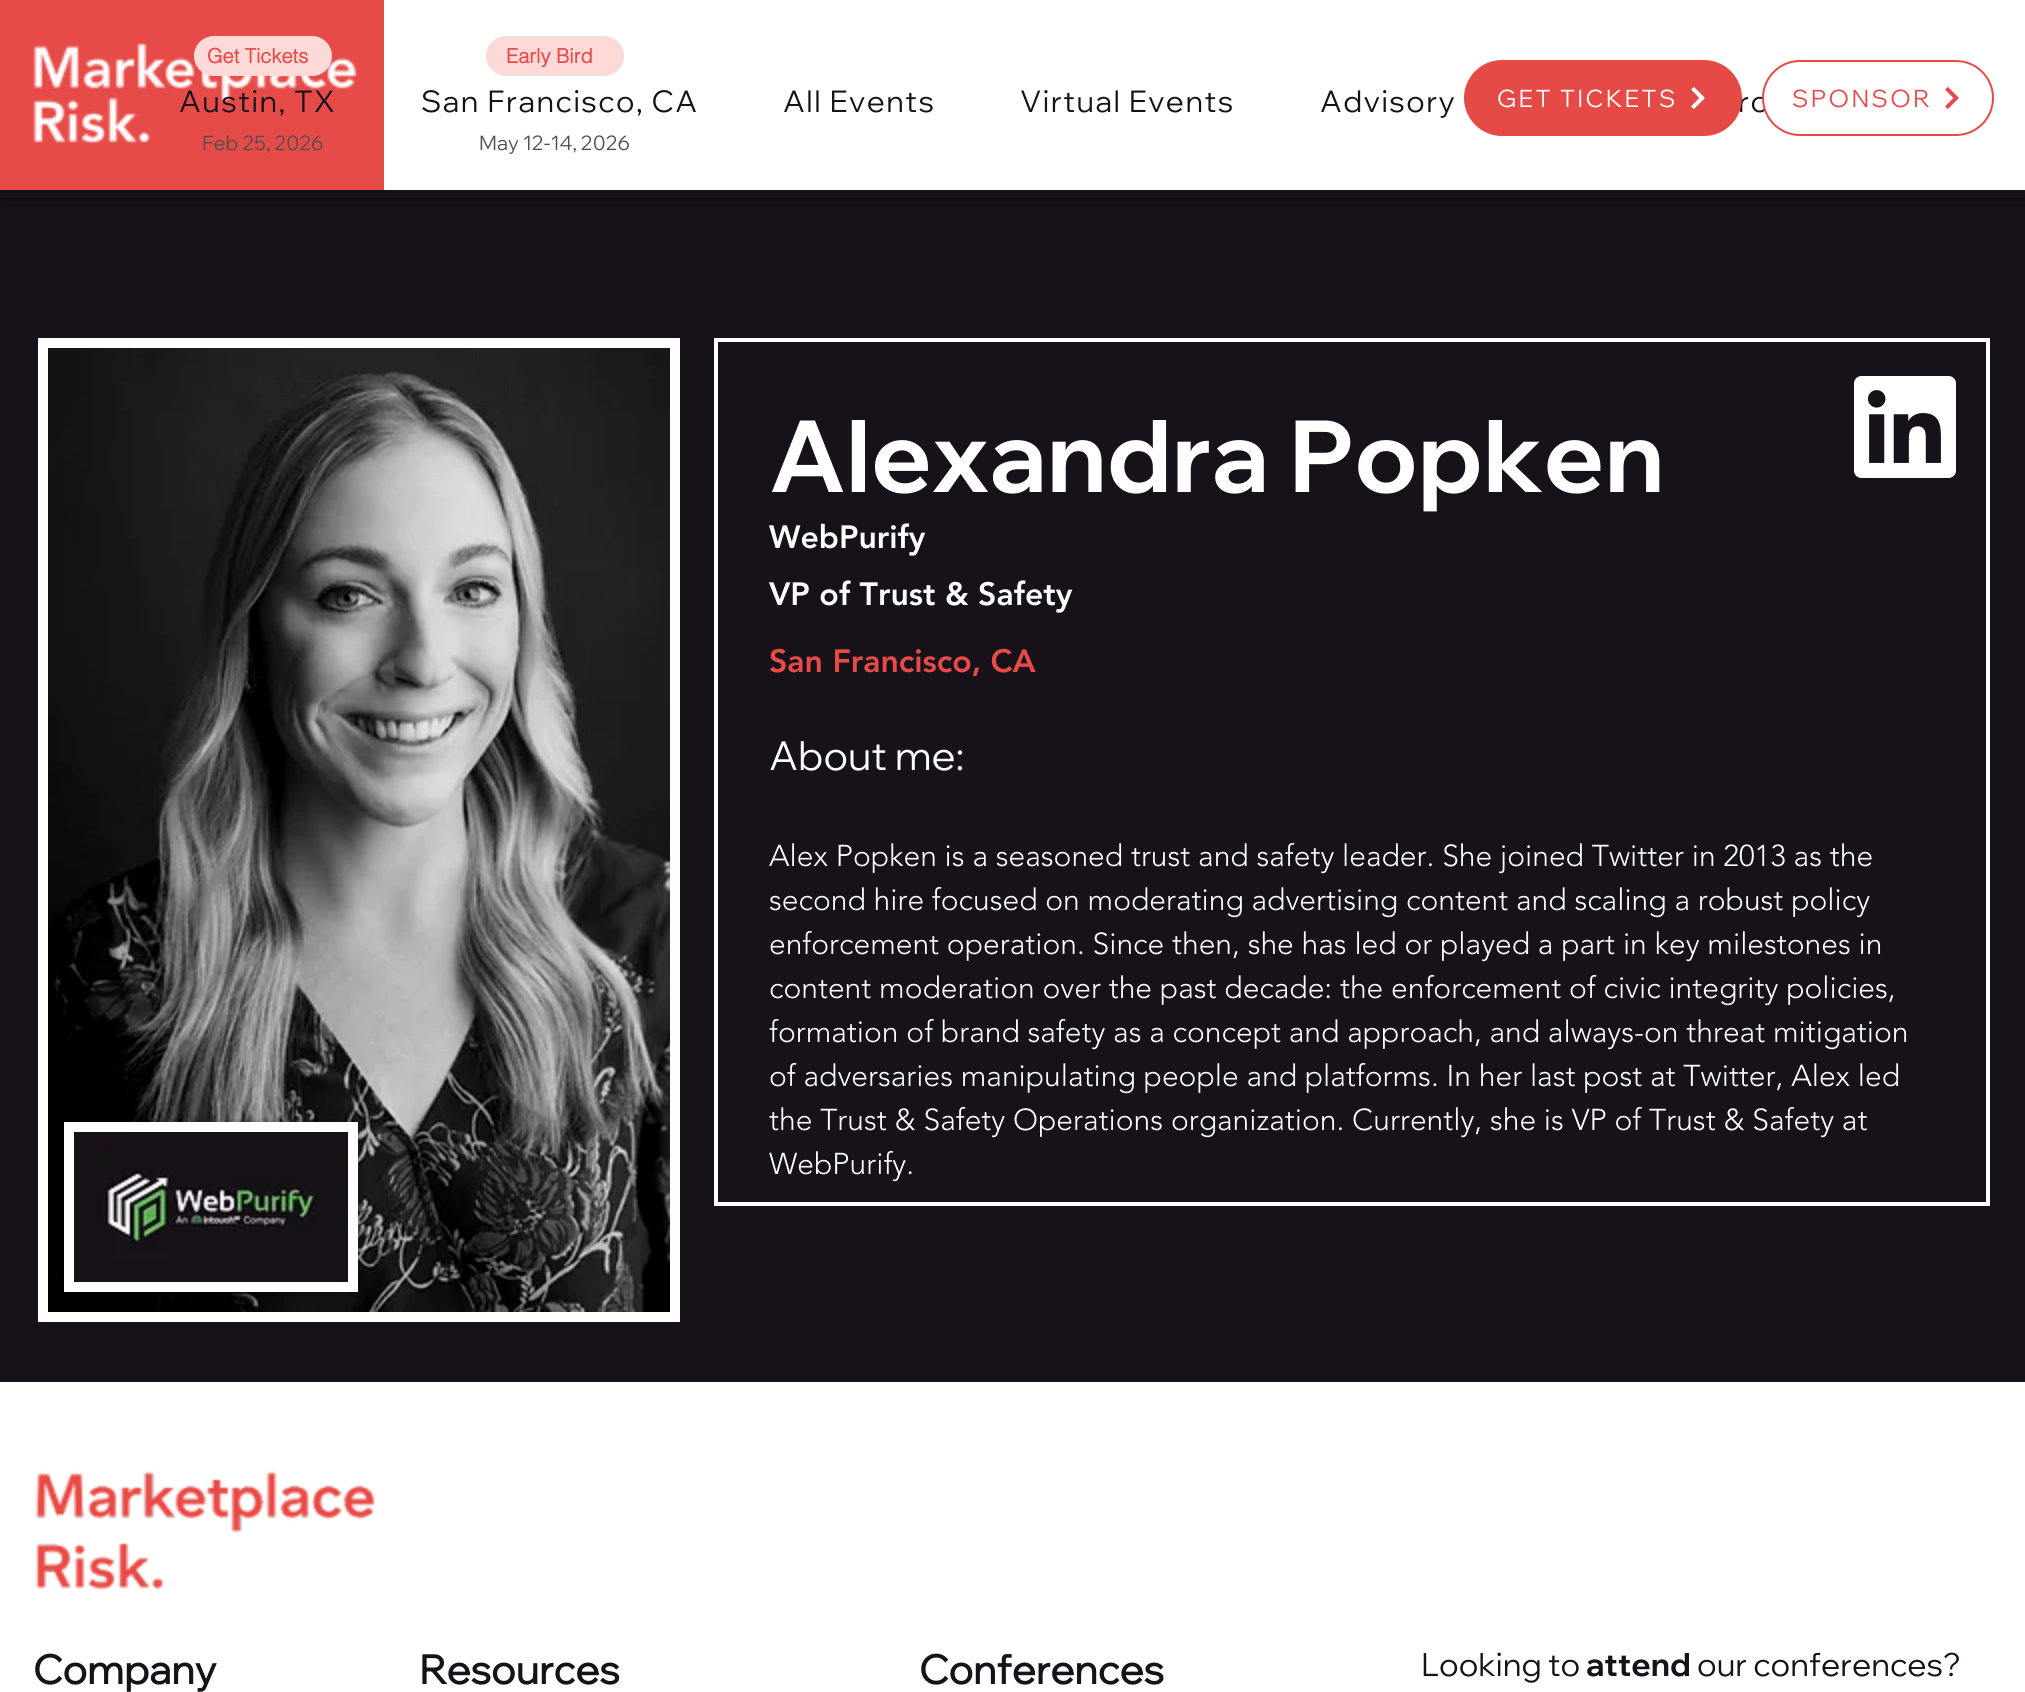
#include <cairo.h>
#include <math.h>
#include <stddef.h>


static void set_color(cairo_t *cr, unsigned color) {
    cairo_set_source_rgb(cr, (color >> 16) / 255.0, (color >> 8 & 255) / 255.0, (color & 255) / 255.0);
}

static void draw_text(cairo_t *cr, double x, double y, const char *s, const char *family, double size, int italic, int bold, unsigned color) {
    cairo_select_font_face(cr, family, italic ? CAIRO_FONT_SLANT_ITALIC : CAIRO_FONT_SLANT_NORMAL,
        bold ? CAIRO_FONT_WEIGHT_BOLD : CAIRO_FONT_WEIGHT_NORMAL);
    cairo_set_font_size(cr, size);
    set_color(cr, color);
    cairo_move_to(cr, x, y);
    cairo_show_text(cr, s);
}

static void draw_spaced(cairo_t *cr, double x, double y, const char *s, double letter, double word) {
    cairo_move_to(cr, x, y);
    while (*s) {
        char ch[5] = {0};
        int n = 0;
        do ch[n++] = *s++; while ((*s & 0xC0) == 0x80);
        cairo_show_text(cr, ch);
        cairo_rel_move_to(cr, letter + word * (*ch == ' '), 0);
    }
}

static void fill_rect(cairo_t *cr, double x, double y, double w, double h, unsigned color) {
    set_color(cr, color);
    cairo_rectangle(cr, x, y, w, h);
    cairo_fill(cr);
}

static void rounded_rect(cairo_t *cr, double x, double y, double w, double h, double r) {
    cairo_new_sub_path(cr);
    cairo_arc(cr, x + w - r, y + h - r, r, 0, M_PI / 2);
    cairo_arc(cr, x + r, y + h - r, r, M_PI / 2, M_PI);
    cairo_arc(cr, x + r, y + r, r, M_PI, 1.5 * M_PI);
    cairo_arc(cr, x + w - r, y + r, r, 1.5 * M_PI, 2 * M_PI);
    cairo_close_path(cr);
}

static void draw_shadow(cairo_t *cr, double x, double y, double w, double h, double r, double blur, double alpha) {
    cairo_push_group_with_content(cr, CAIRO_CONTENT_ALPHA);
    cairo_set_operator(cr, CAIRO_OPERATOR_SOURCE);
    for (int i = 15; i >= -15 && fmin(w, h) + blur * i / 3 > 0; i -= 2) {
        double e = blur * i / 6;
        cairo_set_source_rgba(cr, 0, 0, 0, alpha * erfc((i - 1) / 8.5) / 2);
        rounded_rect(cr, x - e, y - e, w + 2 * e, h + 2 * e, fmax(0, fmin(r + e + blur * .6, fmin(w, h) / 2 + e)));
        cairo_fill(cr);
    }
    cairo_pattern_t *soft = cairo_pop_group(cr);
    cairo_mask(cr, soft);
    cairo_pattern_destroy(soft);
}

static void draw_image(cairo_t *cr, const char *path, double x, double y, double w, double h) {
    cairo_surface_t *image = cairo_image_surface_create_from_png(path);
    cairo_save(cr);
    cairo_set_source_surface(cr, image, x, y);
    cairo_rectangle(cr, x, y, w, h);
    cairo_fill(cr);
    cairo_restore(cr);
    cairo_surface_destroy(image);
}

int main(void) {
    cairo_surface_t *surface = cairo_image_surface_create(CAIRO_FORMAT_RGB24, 2025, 1692);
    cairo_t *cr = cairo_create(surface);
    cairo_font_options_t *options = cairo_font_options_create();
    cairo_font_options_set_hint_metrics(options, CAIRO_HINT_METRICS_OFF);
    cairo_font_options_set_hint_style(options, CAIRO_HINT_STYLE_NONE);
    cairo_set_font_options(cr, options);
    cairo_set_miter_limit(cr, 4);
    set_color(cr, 0xFFFFFF);
    cairo_paint(cr);
    fill_rect(cr, 0, 198, 2025, 1184, 0x171219);
    set_color(cr, 0x000000);
    draw_shadow(cr, 0, 0, 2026, 198, 0, 5, 0.7);
    fill_rect(cr, 0, 190, 2025, 8, 0x171219);
    fill_rect(cr, 0, 0, 384, 190, 0xE64B48);
    draw_image(cr, "assets/img1.png", 33, 43, 324, 101);
    fill_rect(cr, 384, 0, 1641, 190, 0xFFFFFF);
    set_color(cr, 0xFDD9D8);
    rounded_rect(cr, 194, 36, 138, 40, 20);
    cairo_fill(cr);
    draw_text(cr, 207, 63, "Get Tickets", "helvetica", 20, 0, 1, 0xE64B48);
    cairo_select_font_face(cr, "Wix Madefor Display", CAIRO_FONT_SLANT_NORMAL, CAIRO_FONT_WEIGHT_NORMAL);
    cairo_set_font_size(cr, 30);
    set_color(cr, 0x171219);
    draw_spaced(cr, 179, 112, "Austin, TX", 1.5, 0);
    draw_spaced(cr, 421, 112, "San Francisco, CA", 1.5, 0);
    draw_spaced(cr, 783, 112, "All Events", 1.5, 0);
    draw_spaced(cr, 1020, 112, "Virtual Events", 1.5, 0);
    draw_spaced(cr, 1320, 112, "Advisory", 1.5, 0);
    draw_spaced(cr, 1738, 112, "rc", 1.5, 0);
    draw_text(cr, 202, 150, "Feb 25, 2026", "Wix Madefor Display", 20, 0, 0, 0x514D53);
    draw_text(cr, 479, 150, "May 12-14, 2026", "Wix Madefor Display", 20, 0, 0, 0x514D53);
    set_color(cr, 0xFDD9D8);
    rounded_rect(cr, 486, 36, 138, 40, 20);
    cairo_fill(cr);
    draw_text(cr, 506, 63, "Early Bird", "helvetica", 20, 0, 1, 0xE64B48);
    set_color(cr, 0xE64A47);
    rounded_rect(cr, 1465, 61, 276, 74, 37);
    cairo_fill_preserve(cr);
    cairo_stroke(cr);
    cairo_select_font_face(cr, "Wix Madefor Display", CAIRO_FONT_SLANT_NORMAL, CAIRO_FONT_WEIGHT_NORMAL);
    cairo_set_font_size(cr, 24);
    set_color(cr, 0xFFFFFF);
    draw_spaced(cr, 1497, 107, "GET TICKETS", 2.4, 0);
    draw_image(cr, "assets/img2.png", 1691, 87, 14, 22);
    rounded_rect(cr, 1763, 61, 230, 74, 37);
    cairo_fill_preserve(cr);
    set_color(cr, 0xE64A47);
    cairo_stroke(cr);
    set_color(cr, 0xE64B48);
    draw_spaced(cr, 1792, 107, "SPONSOR", 2.4, 0);
    draw_image(cr, "assets/img3.png", 1945, 87, 14, 22);
    fill_rect(cr, 38, 338, 642, 984, 0xFFFFFF);
    draw_image(cr, "assets/img4.png", 48, 348, 622, 964);
    set_color(cr, 0x000000);
    draw_shadow(cr, 64, 1124, 294, 170, 0, 4, 0.4);
    fill_rect(cr, 64, 1122, 294, 170, 0xFFFFFF);
    draw_image(cr, "assets/img5.png", 74, 1132, 274, 150);
    cairo_rectangle(cr, 716, 340, 1272, 864);
    cairo_set_line_width(cr, 4);
    cairo_stroke(cr);
    draw_text(cr, 769, 492, "Alexandra Popken", "Wix Madefor Display", 100, 0, 1, 0xFFFFFF);
    draw_image(cr, "assets/img6.png", 1854, 376, 102, 102);
    draw_text(cr, 769, 548, "WebPurify", "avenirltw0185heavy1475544 Black", 32, 0, 0, 0xFFFFFF);
    draw_text(cr, 769, 605, "VP of Trust & Safety", "avenirltw0185heavy1475544 Black", 32, 0, 0, 0xFFFFFF);
    draw_text(cr, 769, 672, "San Francisco, CA", "avenirltw0185heavy1475544 Black", 32, 0, 0, 0xE64B48);
    draw_text(cr, 769, 770, "About me:", "Wix Madefor Display", 40, 0, 0, 0xFFFFFF);
    draw_text(cr, 769, 866, "Alex Popken is a seasoned trust and safety leader. She joined Twitter in 2013 as the", "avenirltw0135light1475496 Light", 30, 0, 0, 0xFFFFFF);
    draw_text(cr, 769, 910, "second hire focused on moderating advertising content and scaling a robust policy", "avenirltw0135light1475496 Light", 30, 0, 0, 0xFFFFFF);
    draw_text(cr, 769, 954, "enforcement operation. Since then, she has led or played a part in key milestones in", "avenirltw0135light1475496 Light", 30, 0, 0, 0xFFFFFF);
    draw_text(cr, 769, 998, "content moderation over the past decade: the enforcement of civic integrity policies,", "avenirltw0135light1475496 Light", 30, 0, 0, 0xFFFFFF);
    draw_text(cr, 769, 1042, "formation of brand safety as a concept and approach, and always-on threat mitigation", "avenirltw0135light1475496 Light", 30, 0, 0, 0xFFFFFF);
    draw_text(cr, 769, 1086, "of adversaries manipulating people and platforms. In her last post at Twitter, Alex led", "avenirltw0135light1475496 Light", 30, 0, 0, 0xFFFFFF);
    draw_text(cr, 769, 1130, "the Trust & Safety Operations organization. Currently, she is VP of Trust & Safety at", "avenirltw0135light1475496 Light", 30, 0, 0, 0xFFFFFF);
    draw_text(cr, 769, 1174, "WebPurify.", "avenirltw0135light1475496 Light", 30, 0, 0, 0xFFFFFF);
    draw_image(cr, "assets/img7.png", 35, 1471, 340, 120);
    draw_text(cr, 33, 1684, "Company", "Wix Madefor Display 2", 40, 0, 1, 0x171219);
    draw_text(cr, 419, 1684, "Resources", "Wix Madefor Display 2", 40, 0, 1, 0x171219);
    draw_text(cr, 919, 1684, "Conferences", "Wix Madefor Display 2", 40, 0, 1, 0x171219);
    draw_text(cr, 1421, 1676, "Looking to", "Wix Madefor Display", 32, 0, 0, 0x171219);
    draw_text(cr, 1586, 1676, "attend", "Wix Madefor Display", 32, 0, 1, 0x171219);
    draw_text(cr, 1697, 1676, "our conferences?", "Wix Madefor Display", 32, 0, 0, 0x171219);
    cairo_surface_write_to_png(surface, "output.png");
    cairo_font_options_destroy(options);
    cairo_destroy(cr);
    cairo_surface_destroy(surface);
    return 0;
}
